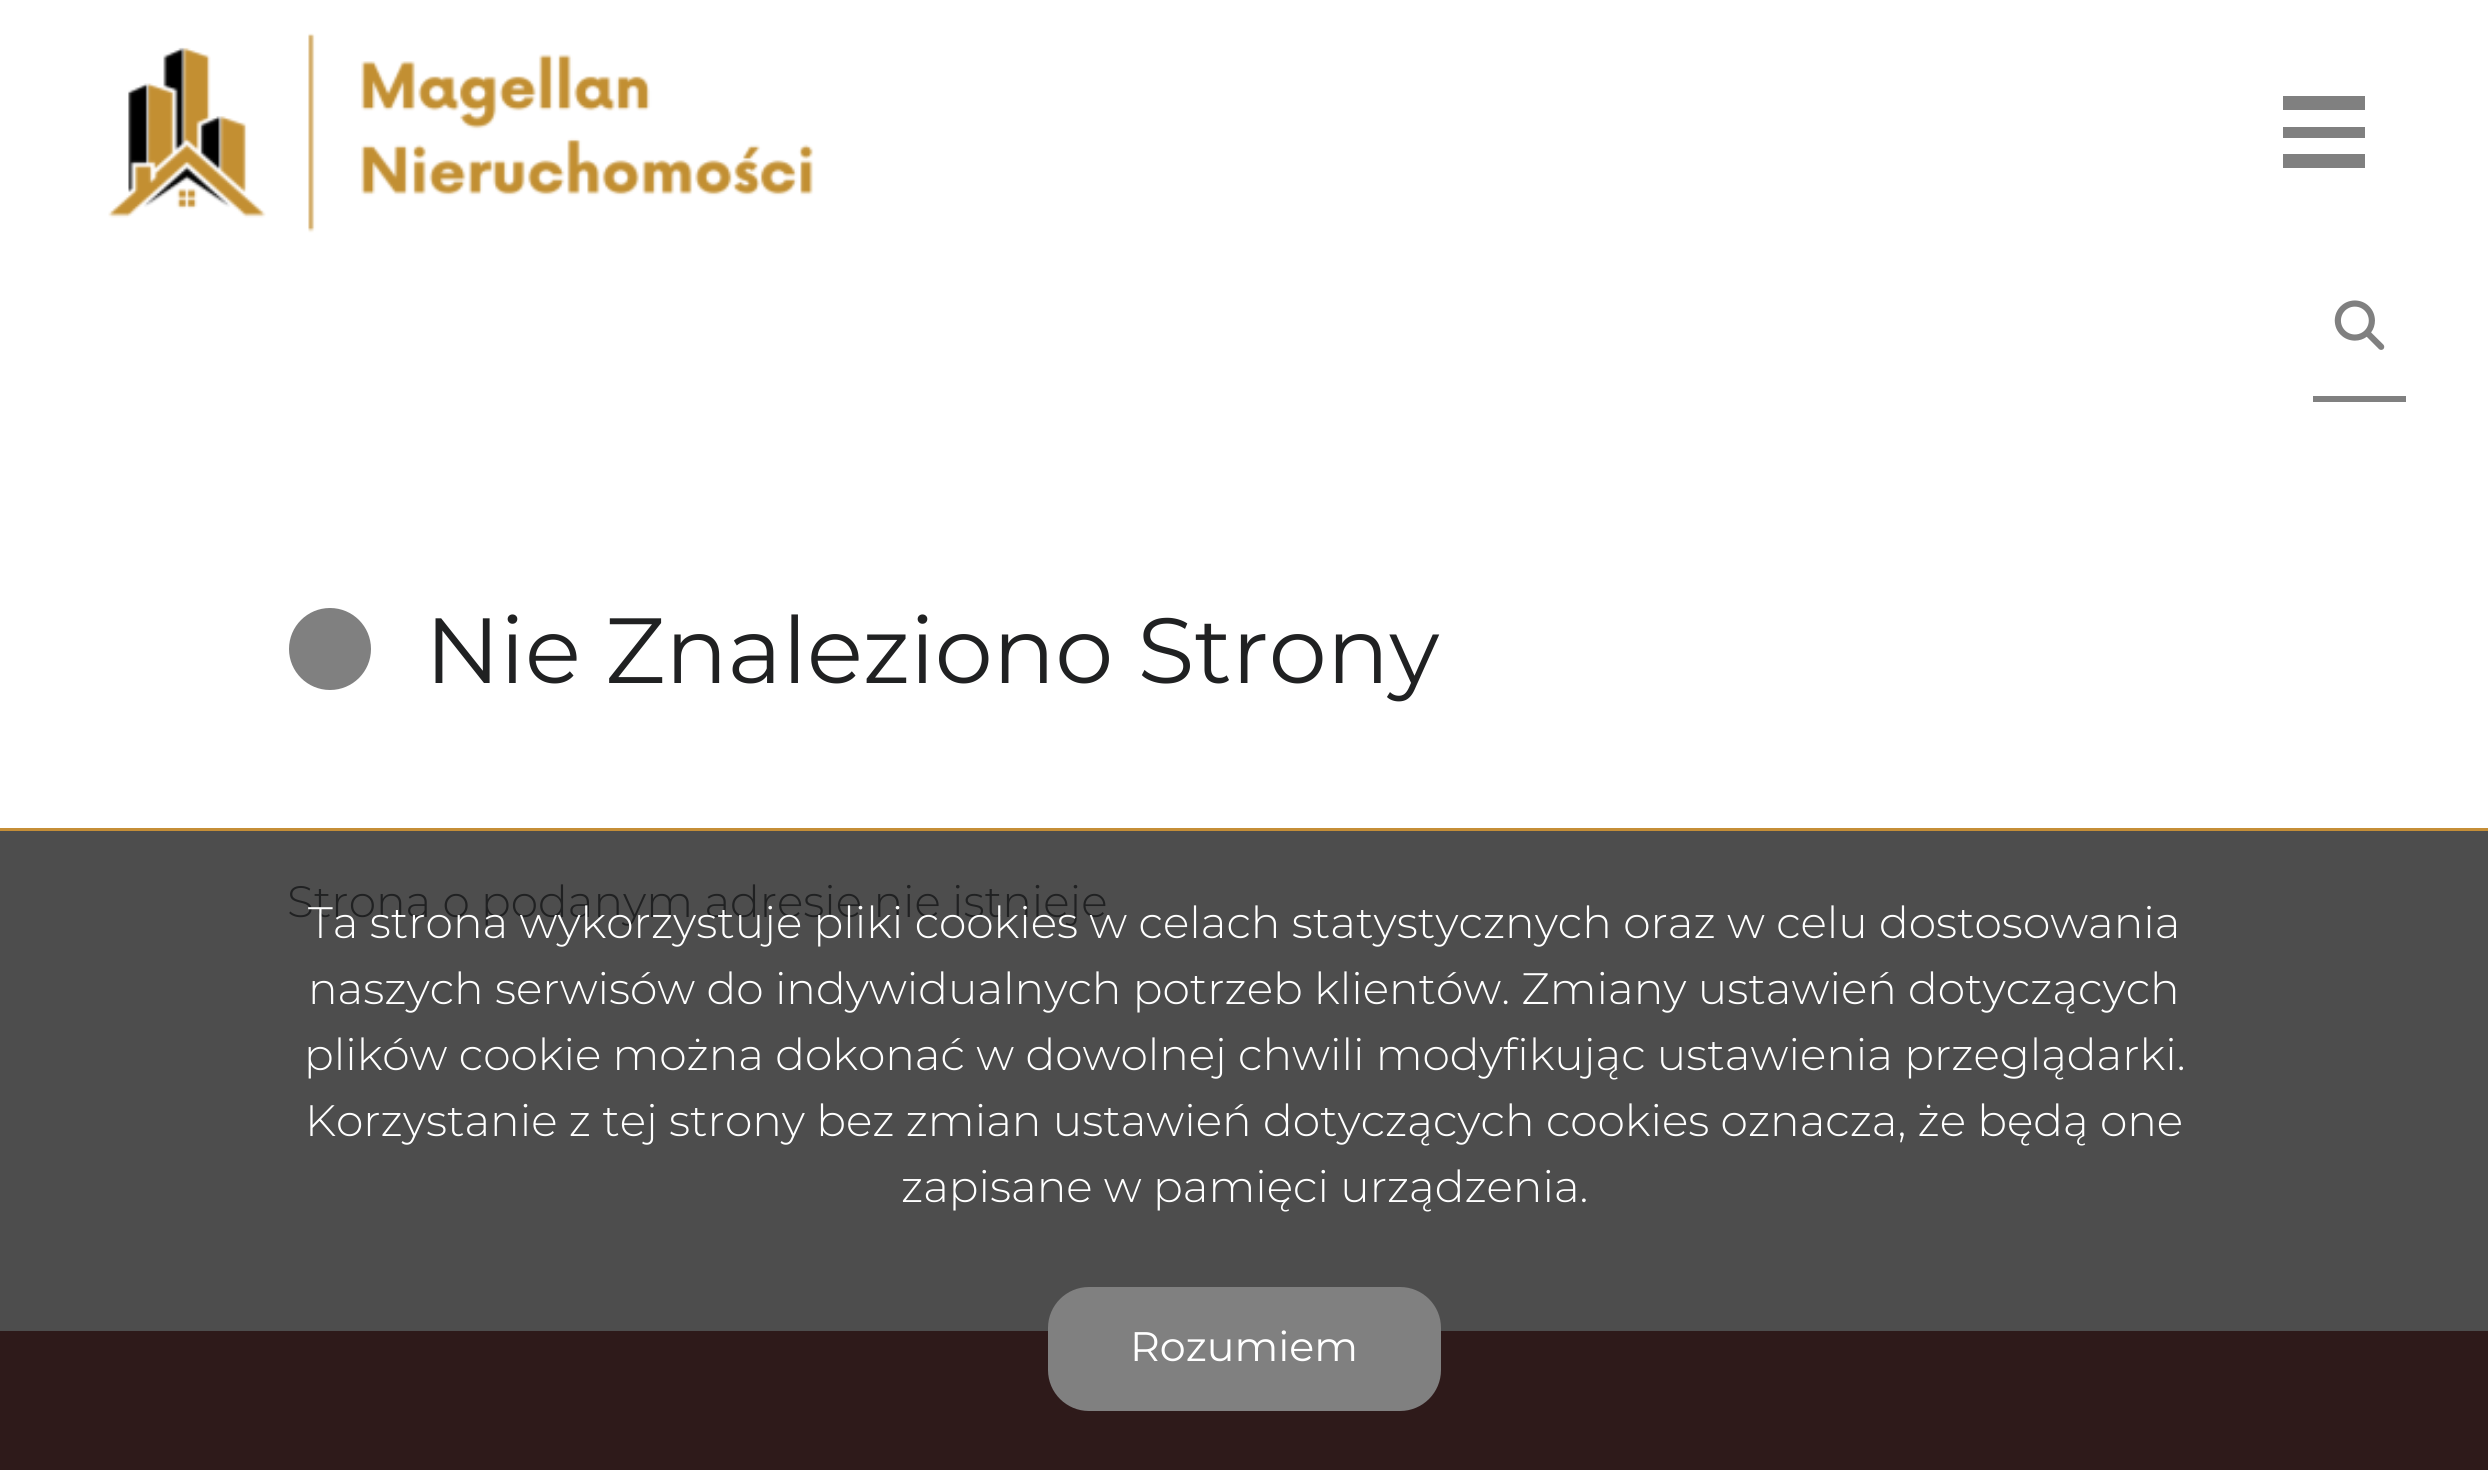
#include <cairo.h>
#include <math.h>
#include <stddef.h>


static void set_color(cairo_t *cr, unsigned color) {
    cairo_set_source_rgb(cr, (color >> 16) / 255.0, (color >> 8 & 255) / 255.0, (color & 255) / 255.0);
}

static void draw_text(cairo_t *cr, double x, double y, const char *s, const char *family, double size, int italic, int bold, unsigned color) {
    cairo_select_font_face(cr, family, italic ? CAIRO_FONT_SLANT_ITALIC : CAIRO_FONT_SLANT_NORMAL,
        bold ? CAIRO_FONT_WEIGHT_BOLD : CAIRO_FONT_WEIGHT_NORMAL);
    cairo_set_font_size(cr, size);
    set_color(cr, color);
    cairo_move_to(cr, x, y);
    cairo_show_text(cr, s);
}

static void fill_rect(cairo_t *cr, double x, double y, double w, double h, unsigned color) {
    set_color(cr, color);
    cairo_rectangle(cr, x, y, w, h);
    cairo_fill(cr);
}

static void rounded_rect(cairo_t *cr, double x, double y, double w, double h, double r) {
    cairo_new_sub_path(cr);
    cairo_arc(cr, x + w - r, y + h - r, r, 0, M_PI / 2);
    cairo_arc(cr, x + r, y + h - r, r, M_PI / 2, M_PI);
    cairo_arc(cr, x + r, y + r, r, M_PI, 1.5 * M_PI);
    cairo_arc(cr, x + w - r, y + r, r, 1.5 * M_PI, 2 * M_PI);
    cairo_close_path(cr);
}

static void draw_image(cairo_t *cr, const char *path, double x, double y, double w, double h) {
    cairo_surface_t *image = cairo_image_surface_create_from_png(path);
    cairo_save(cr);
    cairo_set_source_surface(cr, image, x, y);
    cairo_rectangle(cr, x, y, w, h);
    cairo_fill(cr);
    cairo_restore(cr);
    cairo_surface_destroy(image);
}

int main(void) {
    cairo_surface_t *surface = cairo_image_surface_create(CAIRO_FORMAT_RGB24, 2488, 1470);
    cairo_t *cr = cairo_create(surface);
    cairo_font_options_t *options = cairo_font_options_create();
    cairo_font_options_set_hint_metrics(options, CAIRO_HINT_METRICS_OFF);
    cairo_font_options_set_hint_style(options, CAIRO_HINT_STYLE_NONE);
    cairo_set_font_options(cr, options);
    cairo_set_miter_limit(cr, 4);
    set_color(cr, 0xFFFFFF);
    cairo_paint(cr);
    fill_rect(cr, 0, 831, 2488, 500, 0x4D4D4D);
    draw_image(cr, "assets/img1.png", 108, 33, 706, 200);
    fill_rect(cr, 2283, 96, 82, 14, 0x808080);
    fill_rect(cr, 2283, 127, 82, 11, 0x808080);
    fill_rect(cr, 2283, 154, 82, 14, 0x808080);
    fill_rect(cr, 2313, 396, 93, 6, 0x808080);
    draw_image(cr, "assets/img2.png", 2334, 300, 51, 50);
    cairo_arc(cr, 330, 649, 41, 0, 2 * M_PI);
    cairo_fill(cr);
    draw_text(cr, 425, 683, "Nie Znaleziono Strony", "Montserrat", 92.4, 0, 0, 0x202122);
    draw_text(cr, 287, 917, "Strona o podanym adresie nie istnieje", "Montserrat Light", 44, 0, 0, 0x202122);
    fill_rect(cr, 0, 1331, 2488, 139, 0x2E1A1A);
    fill_rect(cr, 0, 828, 2488, 3, 0xC58E37);
    draw_text(cr, 308, 938, "Ta strona wykorzystuje pliki cookies w celach statystycznych oraz w celu dostosowania", "Montserrat Light", 44, 0, 0, 0xFFFFFF);
    draw_text(cr, 308, 1004, "naszych serwisów do indywidualnych potrzeb klientów. Zmiany ustawień dotyczących", "Montserrat Light", 44, 0, 0, 0xFFFFFF);
    draw_text(cr, 304, 1070, "plików cookie można dokonać w dowolnej chwili modyfikując ustawienia przeglądarki.", "Montserrat Light", 44, 0, 0, 0xFFFFFF);
    draw_text(cr, 305, 1136, "Korzystanie z tej strony bez zmian ustawień dotyczących cookies oznacza, że będą one", "Montserrat Light", 44, 0, 0, 0xFFFFFF);
    draw_text(cr, 901, 1202, "zapisane w pamięci urządzenia.", "Montserrat Light", 44, 0, 0, 0xFFFFFF);
    set_color(cr, 0x808080);
    rounded_rect(cr, 1048, 1287, 393, 124, 41);
    cairo_fill(cr);
    draw_text(cr, 1130, 1361, "Rozumiem", "Montserrat", 41.25, 0, 0, 0xFFFFFF);
    cairo_surface_write_to_png(surface, "output.png");
    cairo_font_options_destroy(options);
    cairo_destroy(cr);
    cairo_surface_destroy(surface);
    return 0;
}
